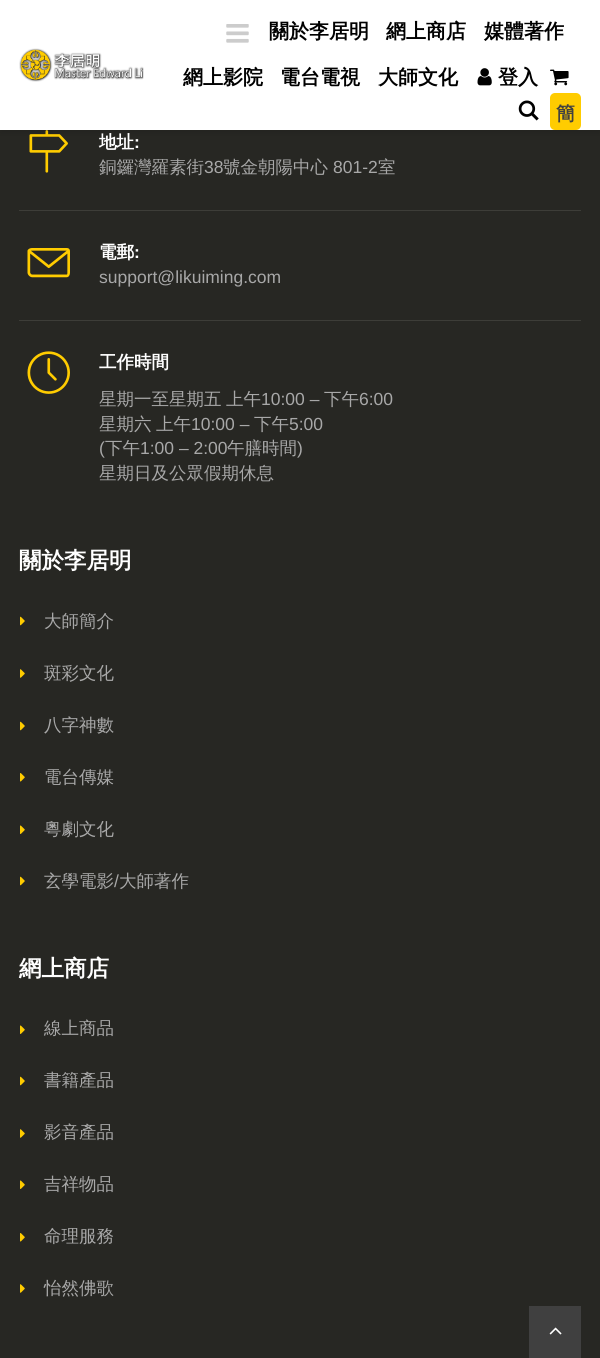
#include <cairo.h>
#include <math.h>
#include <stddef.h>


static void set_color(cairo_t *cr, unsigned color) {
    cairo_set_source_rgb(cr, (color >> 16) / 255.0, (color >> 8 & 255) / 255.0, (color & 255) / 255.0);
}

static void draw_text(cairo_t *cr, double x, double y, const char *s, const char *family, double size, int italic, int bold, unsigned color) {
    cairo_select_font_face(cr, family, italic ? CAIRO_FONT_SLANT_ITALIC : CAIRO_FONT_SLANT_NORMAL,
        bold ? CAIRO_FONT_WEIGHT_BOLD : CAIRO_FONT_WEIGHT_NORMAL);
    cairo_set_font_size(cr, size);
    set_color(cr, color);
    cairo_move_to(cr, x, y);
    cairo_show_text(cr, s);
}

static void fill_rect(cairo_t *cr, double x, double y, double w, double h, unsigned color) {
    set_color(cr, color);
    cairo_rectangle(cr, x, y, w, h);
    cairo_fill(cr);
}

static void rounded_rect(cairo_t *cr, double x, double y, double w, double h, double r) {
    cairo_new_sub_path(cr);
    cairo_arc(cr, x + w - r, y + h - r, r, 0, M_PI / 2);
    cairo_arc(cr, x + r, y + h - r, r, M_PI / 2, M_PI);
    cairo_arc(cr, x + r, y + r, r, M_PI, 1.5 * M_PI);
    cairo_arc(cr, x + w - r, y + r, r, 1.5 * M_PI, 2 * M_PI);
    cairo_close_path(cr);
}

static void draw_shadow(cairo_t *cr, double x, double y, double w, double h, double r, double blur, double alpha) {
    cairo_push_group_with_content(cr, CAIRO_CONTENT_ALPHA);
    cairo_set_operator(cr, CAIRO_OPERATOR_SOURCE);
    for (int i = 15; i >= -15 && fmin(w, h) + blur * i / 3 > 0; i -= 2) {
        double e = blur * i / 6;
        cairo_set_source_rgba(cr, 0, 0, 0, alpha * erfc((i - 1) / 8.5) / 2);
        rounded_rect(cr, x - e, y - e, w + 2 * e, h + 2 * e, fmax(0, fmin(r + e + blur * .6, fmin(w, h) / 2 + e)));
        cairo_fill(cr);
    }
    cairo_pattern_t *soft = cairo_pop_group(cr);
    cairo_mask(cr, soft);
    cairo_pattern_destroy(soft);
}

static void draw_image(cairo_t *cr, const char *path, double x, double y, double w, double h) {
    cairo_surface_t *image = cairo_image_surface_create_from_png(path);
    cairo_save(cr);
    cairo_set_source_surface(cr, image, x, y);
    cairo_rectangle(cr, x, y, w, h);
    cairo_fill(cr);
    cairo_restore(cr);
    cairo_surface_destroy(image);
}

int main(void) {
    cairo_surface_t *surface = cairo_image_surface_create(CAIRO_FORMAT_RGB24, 600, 1358);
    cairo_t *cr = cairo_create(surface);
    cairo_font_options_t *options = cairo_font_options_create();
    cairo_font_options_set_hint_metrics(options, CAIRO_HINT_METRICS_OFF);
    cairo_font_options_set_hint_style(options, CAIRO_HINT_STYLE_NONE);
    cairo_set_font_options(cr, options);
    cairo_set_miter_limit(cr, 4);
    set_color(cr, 0x272723);
    cairo_paint(cr);
    draw_image(cr, "assets/img6.png", 29, 130, 39, 43);
    set_color(cr, 0x000000);
    draw_shadow(cr, 0, 3, 600, 130, 0, 3, 0.1);
    fill_rect(cr, 0, 0, 600, 130, 0xFFFFFF);
    draw_image(cr, "assets/img1.png", 19, 48, 125, 34);
    draw_image(cr, "assets/img2.png", 226, 24, 23, 19);
    draw_text(cr, 269, 38, "關於李居明", "WenQuanYi Zen Hei", 20, 0, 1, 0x000000);
    draw_text(cr, 386, 38, "網上商店", "WenQuanYi Zen Hei", 20, 0, 1, 0x000000);
    draw_text(cr, 484, 38, "媒體著作", "WenQuanYi Zen Hei", 20, 0, 1, 0x000000);
    draw_text(cr, 183, 84, "網上影院", "WenQuanYi Zen Hei", 20, 0, 1, 0x000000);
    draw_text(cr, 280, 84, "電台電視", "WenQuanYi Zen Hei", 20, 0, 1, 0x000000);
    draw_text(cr, 378, 84, "大師文化", "WenQuanYi Zen Hei", 20, 0, 1, 0x000000);
    draw_image(cr, "assets/img3.png", 477, 68, 15, 18);
    draw_text(cr, 498, 84, "登入", "WenQuanYi Zen Hei", 20, 0, 1, 0x000000);
    draw_image(cr, "assets/img4.png", 550, 69, 19, 17);
    draw_image(cr, "assets/img5.png", 518, 100, 21, 21);
    set_color(cr, 0xFFCC00);
    rounded_rect(cr, 550, 93, 31, 37, 5);
    cairo_fill(cr);
    draw_text(cr, 556, 120, "簡", "WenQuanYi Zen Hei", 19, 0, 1, 0x414141);
    fill_rect(cr, 19, 210, 562, 1, 0x3D3D38);
    draw_text(cr, 99, 148, "地址", "WenQuanYi Zen Hei", 17.5, 0, 1, 0xFFFFFF);
    draw_text(cr, 134, 148, ":", "Liberation Sans", 17.5, 0, 1, 0xFFFFFF);
    draw_text(cr, 99, 173, "銅鑼灣羅素街", "WenQuanYi Zen Hei Medium", 17.5, 0, 0, 0xA8A8A8);
    draw_text(cr, 204, 173, "38", "Liberation Sans", 17.5, 0, 0, 0xA8A8A8);
    draw_text(cr, 223, 173, "號金朝陽中心", "WenQuanYi Zen Hei Medium", 17.5, 0, 0, 0xA8A8A8);
    draw_text(cr, 333, 173, "801-2", "Liberation Sans", 17.5, 0, 0, 0xA8A8A8);
    draw_text(cr, 378, 173, "室", "WenQuanYi Zen Hei Medium", 17.5, 0, 0, 0xA8A8A8);
    fill_rect(cr, 19, 320, 562, 1, 0x3D3D38);
    draw_image(cr, "assets/img7.png", 27, 248, 43, 30);
    draw_text(cr, 99, 258, "電郵", "WenQuanYi Zen Hei", 17.5, 0, 1, 0xFFFFFF);
    draw_text(cr, 134, 258, ":", "Liberation Sans", 17.5, 0, 1, 0xFFFFFF);
    draw_text(cr, 99, 283, "support@likuiming.com", "Liberation Sans", 17.5, 0, 0, 0xA8A8A8);
    draw_image(cr, "assets/img8.png", 27, 351, 43, 43);
    draw_text(cr, 99, 368, "工作時間", "WenQuanYi Zen Hei", 17.5, 0, 1, 0xFFFFFF);
    draw_text(cr, 99, 405, "星期一至星期五", "WenQuanYi Zen Hei Medium", 17.5, 0, 0, 0xA8A8A8);
    draw_text(cr, 226, 405, "上午", "WenQuanYi Zen Hei Medium", 17.5, 0, 0, 0xA8A8A8);
    draw_text(cr, 261, 405, "10:00 –", "Liberation Sans", 17.5, 0, 0, 0xA8A8A8);
    draw_text(cr, 324, 405, "下午", "WenQuanYi Zen Hei Medium", 17.5, 0, 0, 0xA8A8A8);
    draw_text(cr, 359, 405, "6:00", "Liberation Sans", 17.5, 0, 0, 0xA8A8A8);
    draw_text(cr, 99, 430, "星期六", "WenQuanYi Zen Hei Medium", 17.5, 0, 0, 0xA8A8A8);
    draw_text(cr, 156, 430, "上午", "WenQuanYi Zen Hei Medium", 17.5, 0, 0, 0xA8A8A8);
    draw_text(cr, 191, 430, "10:00 –", "Liberation Sans", 17.5, 0, 0, 0xA8A8A8);
    draw_text(cr, 254, 430, "下午", "WenQuanYi Zen Hei Medium", 17.5, 0, 0, 0xA8A8A8);
    draw_text(cr, 289, 430, "5:00", "Liberation Sans", 17.5, 0, 0, 0xA8A8A8);
    draw_text(cr, 99, 454, "(", "Liberation Sans", 17.5, 0, 0, 0xA8A8A8);
    draw_text(cr, 105, 454, "下午", "WenQuanYi Zen Hei Medium", 17.5, 0, 0, 0xA8A8A8);
    draw_text(cr, 140, 454, "1:00 – 2:00", "Liberation Sans", 17.5, 0, 0, 0xA8A8A8);
    draw_text(cr, 227, 454, "午膳時間", "WenQuanYi Zen Hei Medium", 17.5, 0, 0, 0xA8A8A8);
    draw_text(cr, 297, 454, ")", "Liberation Sans", 17.5, 0, 0, 0xA8A8A8);
    draw_text(cr, 99, 479, "星期日及公眾假期休息", "WenQuanYi Zen Hei Medium", 17.5, 0, 0, 0xA8A8A8);
    draw_text(cr, 19, 568, "關於李居明", "WenQuanYi Zen Hei", 22.5, 0, 1, 0xFFFFFF);
    draw_image(cr, "assets/img9.png", 20, 616, 5, 10);
    draw_text(cr, 44, 627, "大師簡介", "WenQuanYi Zen Hei Medium", 17.5, 0, 0, 0xA8A8A8);
    draw_image(cr, "assets/img10.png", 20, 669, 5, 9);
    draw_text(cr, 44, 679, "斑彩文化", "WenQuanYi Zen Hei Medium", 17.5, 0, 0, 0xA8A8A8);
    draw_image(cr, "assets/img9.png", 20, 721, 5, 10);
    draw_text(cr, 44, 731, "八字神數", "WenQuanYi Zen Hei Medium", 17.5, 0, 0, 0xA8A8A8);
    draw_image(cr, "assets/img11.png", 20, 773, 5, 9);
    draw_text(cr, 44, 783, "電台傳媒", "WenQuanYi Zen Hei Medium", 17.5, 0, 0, 0xA8A8A8);
    draw_image(cr, "assets/img12.png", 20, 825, 5, 9);
    draw_text(cr, 44, 835, "粵劇文化", "WenQuanYi Zen Hei Medium", 17.5, 0, 0, 0xA8A8A8);
    draw_image(cr, "assets/img9.png", 20, 876, 5, 10);
    draw_text(cr, 44, 887, "玄學電影", "WenQuanYi Zen Hei Medium", 17.5, 0, 0, 0xA8A8A8);
    draw_text(cr, 114, 887, "/", "Liberation Sans", 17.5, 0, 0, 0xA8A8A8);
    draw_text(cr, 119, 887, "大師著作", "WenQuanYi Zen Hei Medium", 17.5, 0, 0, 0xA8A8A8);
    draw_text(cr, 19, 976, "網上商店", "WenQuanYi Zen Hei", 22.5, 0, 1, 0xFFFFFF);
    draw_image(cr, "assets/img12.png", 20, 1025, 5, 9);
    draw_text(cr, 44, 1034, "線上商品", "WenQuanYi Zen Hei Medium", 17.5, 0, 0, 0xA8A8A8);
    draw_image(cr, "assets/img9.png", 20, 1076, 5, 10);
    draw_text(cr, 44, 1086, "書籍產品", "WenQuanYi Zen Hei Medium", 17.5, 0, 0, 0xA8A8A8);
    draw_image(cr, "assets/img10.png", 20, 1129, 5, 9);
    draw_text(cr, 44, 1138, "影音產品", "WenQuanYi Zen Hei Medium", 17.5, 0, 0, 0xA8A8A8);
    draw_image(cr, "assets/img12.png", 20, 1180, 5, 9);
    draw_text(cr, 44, 1190, "吉祥物品", "WenQuanYi Zen Hei Medium", 17.5, 0, 0, 0xA8A8A8);
    draw_image(cr, "assets/img11.png", 20, 1233, 5, 9);
    draw_text(cr, 44, 1242, "命理服務", "WenQuanYi Zen Hei Medium", 17.5, 0, 0, 0xA8A8A8);
    draw_image(cr, "assets/img10.png", 20, 1284, 5, 9);
    draw_text(cr, 44, 1294, "怡然佛歌", "WenQuanYi Zen Hei Medium", 17.5, 0, 0, 0xA8A8A8);
    fill_rect(cr, 529, 1306, 52, 52, 0x404040);
    draw_image(cr, "assets/img13.png", 549, 1327, 13, 8);
    cairo_surface_write_to_png(surface, "output.png");
    cairo_font_options_destroy(options);
    cairo_destroy(cr);
    cairo_surface_destroy(surface);
    return 0;
}
